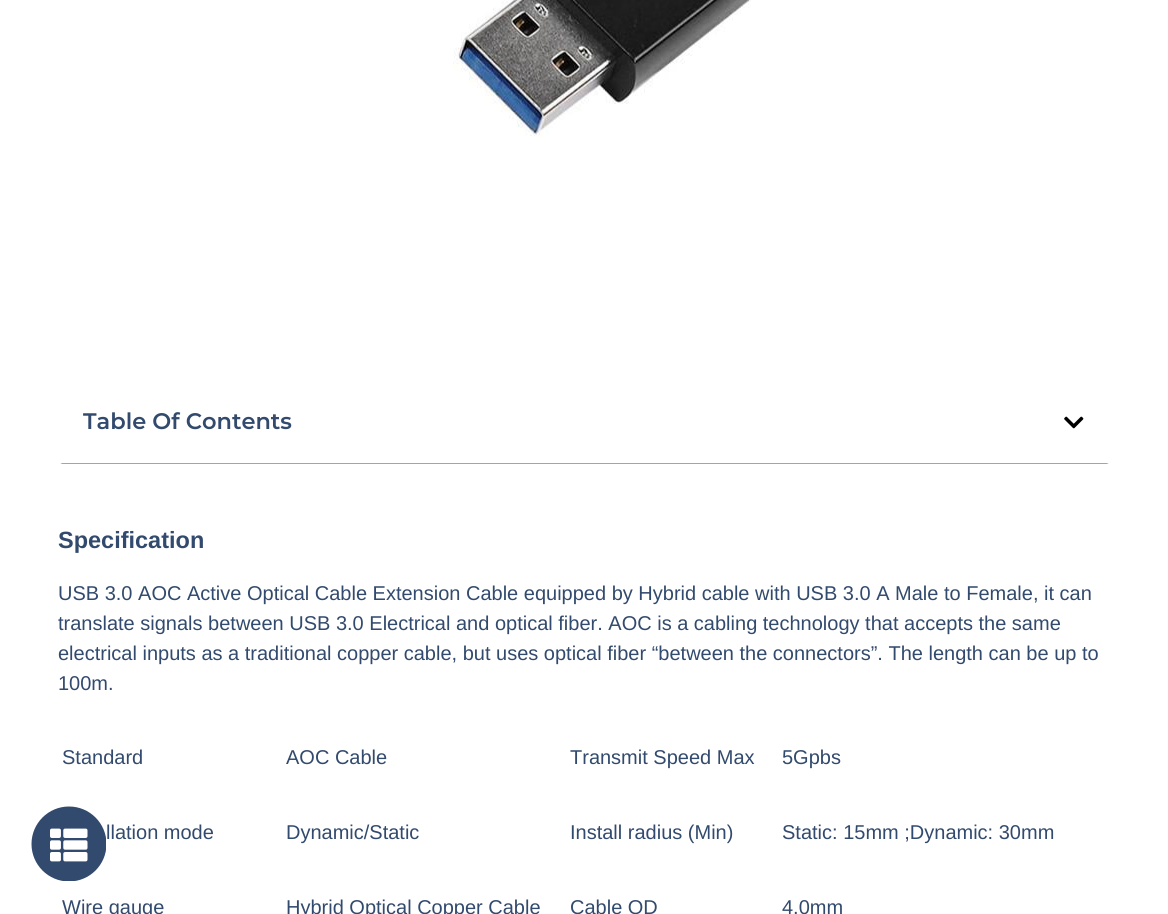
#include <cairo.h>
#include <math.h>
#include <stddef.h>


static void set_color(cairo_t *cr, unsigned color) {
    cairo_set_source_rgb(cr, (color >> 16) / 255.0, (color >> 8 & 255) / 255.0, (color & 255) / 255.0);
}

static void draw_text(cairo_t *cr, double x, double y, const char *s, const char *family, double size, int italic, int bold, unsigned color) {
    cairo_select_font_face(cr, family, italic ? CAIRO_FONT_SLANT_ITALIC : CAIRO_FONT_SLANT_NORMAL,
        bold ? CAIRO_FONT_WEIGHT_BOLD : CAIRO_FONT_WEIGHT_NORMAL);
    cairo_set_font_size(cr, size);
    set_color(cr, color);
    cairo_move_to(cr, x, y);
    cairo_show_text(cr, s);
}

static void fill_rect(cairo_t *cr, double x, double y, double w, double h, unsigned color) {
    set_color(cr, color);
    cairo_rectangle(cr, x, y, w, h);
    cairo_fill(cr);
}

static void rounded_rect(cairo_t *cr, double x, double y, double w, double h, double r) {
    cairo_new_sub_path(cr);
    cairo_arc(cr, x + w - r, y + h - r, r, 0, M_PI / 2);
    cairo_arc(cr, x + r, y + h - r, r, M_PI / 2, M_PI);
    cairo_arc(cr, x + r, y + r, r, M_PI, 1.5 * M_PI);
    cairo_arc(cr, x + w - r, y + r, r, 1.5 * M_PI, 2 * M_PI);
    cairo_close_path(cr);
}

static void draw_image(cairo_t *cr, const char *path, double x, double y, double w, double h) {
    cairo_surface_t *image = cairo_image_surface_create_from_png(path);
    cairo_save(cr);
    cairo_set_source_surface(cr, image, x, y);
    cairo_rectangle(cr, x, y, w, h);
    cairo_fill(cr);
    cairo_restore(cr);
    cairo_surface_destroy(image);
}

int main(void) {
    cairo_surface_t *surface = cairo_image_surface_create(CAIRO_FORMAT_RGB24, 1168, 914);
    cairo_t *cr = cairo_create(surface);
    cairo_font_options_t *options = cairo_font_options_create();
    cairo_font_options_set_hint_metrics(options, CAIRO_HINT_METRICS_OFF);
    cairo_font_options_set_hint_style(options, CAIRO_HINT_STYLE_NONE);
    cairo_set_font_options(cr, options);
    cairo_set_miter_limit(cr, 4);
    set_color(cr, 0xFFFFFF);
    cairo_paint(cr);
    draw_image(cr, "assets/img1.png", 453, 0, 298, 138);
    cairo_save(cr);
    rounded_rect(cr, 59, 381, 1051, 83, 4);
    cairo_clip(cr);
    fill_rect(cr, 59, 463, 1051, 1, 0x9DA5AE);
    cairo_restore(cr);
    draw_text(cr, 83, 429, "Table Of Contents", "Montserrat SemiBold", 22.5, 0, 0, 0x324A6D);
    draw_image(cr, "assets/img2.png", 1064, 416, 20, 13);
    draw_text(cr, 58, 548, "Specification", "Liberation Sans", 23.5, 0, 1, 0x324A6D);
    draw_text(cr, 58, 600, "USB 3.0 AOC Active Optical Cable Extension Cable equipped by Hybrid cable with USB 3.0 A Male to Female, it can", "Liberation Sans", 20, 0, 0, 0x324A6D);
    draw_text(cr, 58, 630, "translate signals between USB 3.0 Electrical and optical fiber. AOC is a cabling technology that accepts the same", "Liberation Sans", 20, 0, 0, 0x324A6D);
    draw_text(cr, 58, 660, "electrical inputs as a traditional copper cable, but uses optical fiber “between the connectors”. The length can be up to", "Liberation Sans", 20, 0, 0, 0x324A6D);
    draw_text(cr, 58, 690, "100m.", "Liberation Sans", 20, 0, 0, 0x324A6D);
    draw_text(cr, 62, 764, "Standard", "Liberation Sans", 20, 0, 0, 0x324A6D);
    draw_text(cr, 286, 764, "AOC Cable", "Liberation Sans", 20, 0, 0, 0x324A6D);
    draw_text(cr, 570, 764, "Transmit Speed Max", "Liberation Sans", 20, 0, 0, 0x324A6D);
    draw_text(cr, 782, 764, "5Gpbs", "Liberation Sans", 20, 0, 0, 0x324A6D);
    draw_text(cr, 106, 839, "llation mode", "Liberation Sans", 20, 0, 0, 0x324A6D);
    draw_text(cr, 286, 839, "Dynamic/Static", "Liberation Sans", 20, 0, 0, 0x324A6D);
    draw_text(cr, 570, 839, "Install radius (Min)", "Liberation Sans", 20, 0, 0, 0x324A6D);
    draw_text(cr, 782, 839, "Static: 15mm ;Dynamic: 30mm", "Liberation Sans", 20, 0, 0, 0x324A6D);
    draw_text(cr, 62, 914, "Wire gauge", "Liberation Sans", 20, 0, 0, 0x324A6D);
    draw_text(cr, 286, 914, "Hybrid Optical Copper Cable", "Liberation Sans", 20, 0, 0, 0x324A6D);
    draw_text(cr, 570, 914, "Cable OD", "Liberation Sans", 20, 0, 0, 0x324A6D);
    draw_text(cr, 782, 914, "4.0mm", "Liberation Sans", 20, 0, 0, 0x324A6D);
    cairo_save(cr);
    cairo_rectangle(cr, 31, 806, 75, 75);
    cairo_clip(cr);
    cairo_arc(cr, 69, 844, 37.5, 0, 2 * M_PI);
    cairo_fill(cr);
    cairo_restore(cr);
    draw_image(cr, "assets/img3.png", 50, 828, 38, 34);
    cairo_surface_write_to_png(surface, "output.png");
    cairo_font_options_destroy(options);
    cairo_destroy(cr);
    cairo_surface_destroy(surface);
    return 0;
}
